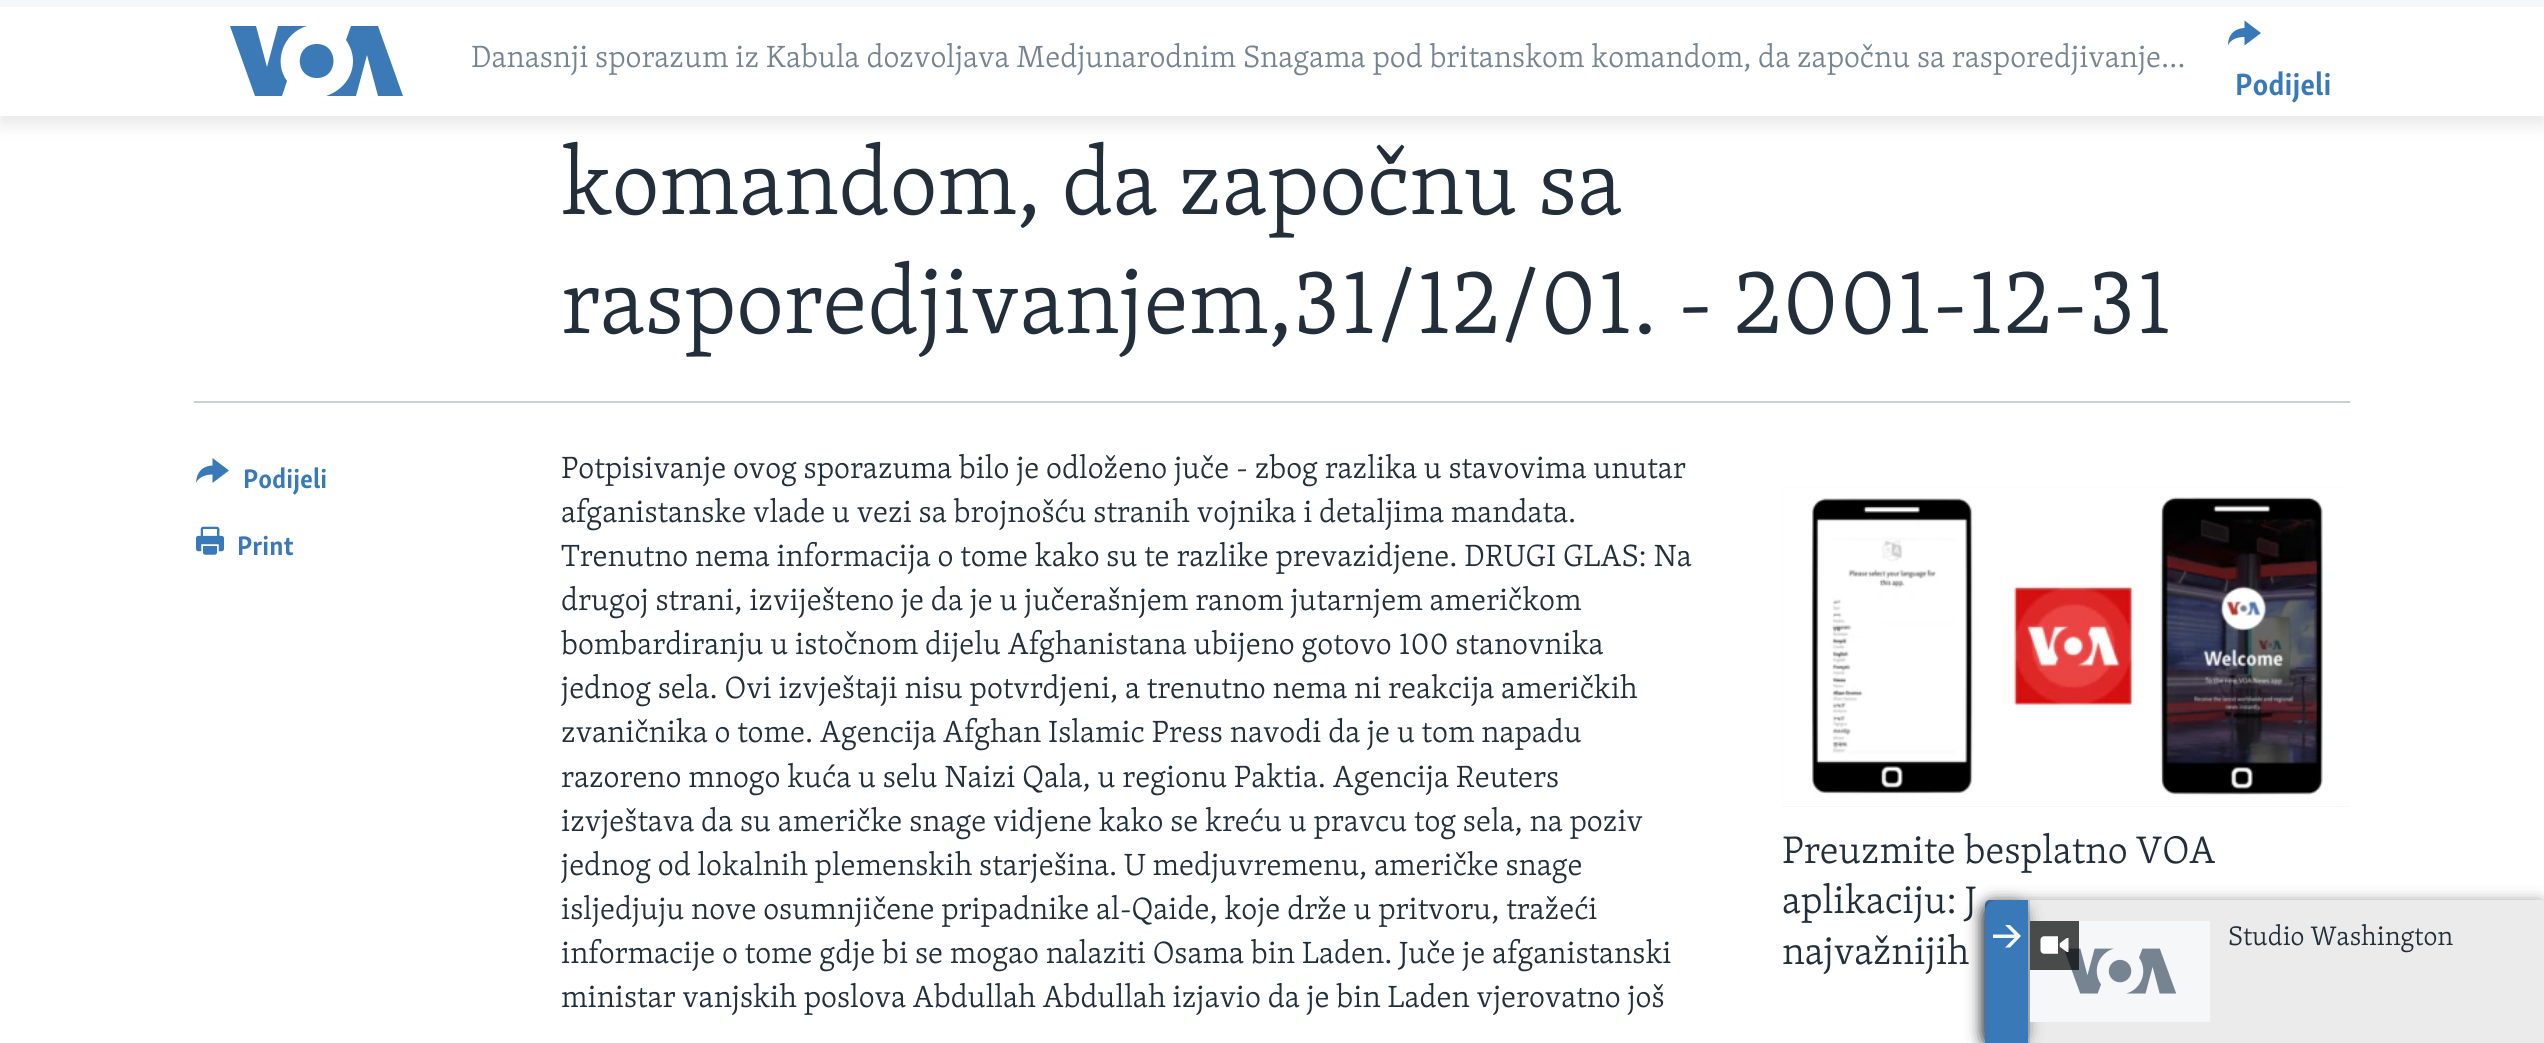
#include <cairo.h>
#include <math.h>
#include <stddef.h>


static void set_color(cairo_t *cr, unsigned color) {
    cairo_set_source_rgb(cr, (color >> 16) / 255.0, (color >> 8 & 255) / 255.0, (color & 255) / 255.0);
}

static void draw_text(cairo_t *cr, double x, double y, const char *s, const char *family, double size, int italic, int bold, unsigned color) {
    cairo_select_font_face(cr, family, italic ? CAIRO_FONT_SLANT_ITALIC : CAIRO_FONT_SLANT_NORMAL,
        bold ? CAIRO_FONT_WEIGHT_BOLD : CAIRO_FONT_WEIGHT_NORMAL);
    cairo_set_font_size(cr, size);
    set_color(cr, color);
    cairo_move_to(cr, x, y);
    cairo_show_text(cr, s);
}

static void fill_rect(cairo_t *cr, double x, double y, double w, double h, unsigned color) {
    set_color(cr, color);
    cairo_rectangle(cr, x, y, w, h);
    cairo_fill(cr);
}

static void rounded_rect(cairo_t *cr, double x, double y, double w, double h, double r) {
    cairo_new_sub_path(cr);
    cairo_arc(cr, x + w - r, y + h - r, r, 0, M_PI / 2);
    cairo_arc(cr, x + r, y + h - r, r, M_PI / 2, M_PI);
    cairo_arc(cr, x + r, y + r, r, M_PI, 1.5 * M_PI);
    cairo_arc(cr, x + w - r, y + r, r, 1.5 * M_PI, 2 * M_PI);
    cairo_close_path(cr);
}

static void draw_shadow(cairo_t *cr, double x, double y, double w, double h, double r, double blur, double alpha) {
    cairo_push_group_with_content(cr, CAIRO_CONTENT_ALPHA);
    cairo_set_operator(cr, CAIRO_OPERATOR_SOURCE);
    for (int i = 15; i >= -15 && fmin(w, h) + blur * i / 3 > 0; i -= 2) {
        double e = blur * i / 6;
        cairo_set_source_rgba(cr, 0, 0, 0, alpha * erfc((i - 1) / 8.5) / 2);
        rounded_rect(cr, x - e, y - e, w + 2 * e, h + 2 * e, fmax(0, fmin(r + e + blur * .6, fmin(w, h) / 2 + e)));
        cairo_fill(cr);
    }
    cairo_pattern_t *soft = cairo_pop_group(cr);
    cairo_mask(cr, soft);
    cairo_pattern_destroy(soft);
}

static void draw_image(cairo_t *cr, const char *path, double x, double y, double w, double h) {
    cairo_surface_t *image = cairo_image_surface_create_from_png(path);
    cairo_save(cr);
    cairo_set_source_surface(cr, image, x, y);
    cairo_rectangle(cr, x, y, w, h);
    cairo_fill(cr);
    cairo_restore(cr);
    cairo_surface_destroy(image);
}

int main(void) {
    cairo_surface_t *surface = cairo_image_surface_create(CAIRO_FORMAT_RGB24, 2544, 1043);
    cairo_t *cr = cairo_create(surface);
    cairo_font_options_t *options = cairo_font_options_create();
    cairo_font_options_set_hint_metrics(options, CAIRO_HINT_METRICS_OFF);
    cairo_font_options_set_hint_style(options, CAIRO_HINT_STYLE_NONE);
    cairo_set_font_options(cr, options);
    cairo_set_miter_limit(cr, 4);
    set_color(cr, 0xFFFFFF);
    cairo_paint(cr);
    set_color(cr, 0x000000);
    draw_shadow(cr, 0, 9, 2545, 115, 0, 9, 0.1);
    fill_rect(cr, 0, 7, 2544, 109, 0xFFFFFF);
    fill_rect(cr, 0, 0, 2544, 7, 0xF6F7F8);
    set_color(cr, 0x3B79B7);
    cairo_new_path(cr);
    cairo_move_to(cr, 287, 81);
    cairo_line_to(cr, 282, 96);
    cairo_line_to(cr, 255, 96);
    cairo_line_to(cr, 230, 26);
    cairo_line_to(cr, 256, 26);
    cairo_line_to(cr, 267, 67);
    cairo_line_to(cr, 278, 26);
    cairo_line_to(cr, 307, 26);
    cairo_curve_to(cr, 283, 33, 273, 62, 287, 81);
    cairo_close_path(cr);
    cairo_move_to(cr, 317, 44);
    cairo_curve_to(cr, 294, 44, 294, 78, 317, 78);
    cairo_curve_to(cr, 339, 78, 339, 44, 317, 44);
    cairo_close_path(cr);
    cairo_move_to(cr, 353, 61);
    cairo_curve_to(cr, 353, 78, 341, 91, 326, 96);
    cairo_line_to(cr, 356, 96);
    cairo_line_to(cr, 367, 55);
    cairo_line_to(cr, 378, 96);
    cairo_line_to(cr, 403, 96);
    cairo_line_to(cr, 378, 26);
    cairo_line_to(cr, 351, 26);
    cairo_line_to(cr, 346, 40);
    cairo_curve_to(cr, 350, 46, 353, 53, 353, 61);
    cairo_close_path(cr);
    cairo_fill(cr);
    draw_text(cr, 471, 67, "Danasnji sporazum iz Kabula dozvoljava Medjunarodnim Snagama pod britanskom komandom, da započnu sa rasporedjivanje…", "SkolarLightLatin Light", 31.5, 0, 0, 0x768492);
    set_color(cr, 0x3A79B7);
    cairo_new_path(cr);
    cairo_move_to(cr, 2228, 45.5);
    cairo_curve_to(cr, 2228, 35, 2234, 28.5, 2244.5, 28);
    cairo_line_to(cr, 2244.5, 20.5);
    cairo_line_to(cr, 2261, 33);
    cairo_line_to(cr, 2244.5, 45.5);
    cairo_line_to(cr, 2244.5, 37);
    cairo_curve_to(cr, 2238, 37, 2230.5, 39, 2228, 45.5);
    cairo_close_path(cr);
    cairo_fill(cr);
    draw_text(cr, 2235, 95, "Podijeli", "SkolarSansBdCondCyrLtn", 31.5, 0, 1, 0x3A79B7);
    draw_text(cr, 561, 214, "komandom, da započnu sa", "SkolarLightLatin Light", 94.5, 0, 0, 0x222F3A);
    draw_text(cr, 561, 333, "rasporedjivanjem,31/12/01. - 2001-12-31", "SkolarLightLatin Light", 94.5, 0, 0, 0x222F3A);
    fill_rect(cr, 194, 401, 2156, 2, 0xCBD1D6);
    set_color(cr, 0x3A79B7);
    cairo_new_path(cr);
    cairo_move_to(cr, 196, 483);
    cairo_curve_to(cr, 196.5, 472.5, 202, 466, 212.5, 465.5);
    cairo_line_to(cr, 212.5, 458);
    cairo_line_to(cr, 229, 470.5);
    cairo_line_to(cr, 212.5, 483);
    cairo_line_to(cr, 212.5, 474.5);
    cairo_curve_to(cr, 206.5, 474.5, 199, 476.5, 196, 483);
    cairo_close_path(cr);
    cairo_fill(cr);
    draw_text(cr, 243, 488, "Podijeli", "SkolarSansBdCondCyrLtn", 27.5, 0, 1, 0x3A79B7);
    draw_image(cr, "assets/img1.png", 196, 526, 28, 29);
    draw_text(cr, 237, 555, "Print", "SkolarSansBdCondCyrLtn", 27.5, 0, 1, 0x3A79B7);
    draw_text(cr, 561, 478, "Potpisivanje ovog sporazuma bilo je odloženo juče - zbog razlika u stavovima unutar", "SkolarLightLatin Light", 31.5, 0, 0, 0x222F3A);
    draw_text(cr, 561, 522, "afganistanske vlade u vezi sa brojnošću stranih vojnika i detaljima mandata.", "SkolarLightLatin Light", 31.5, 0, 0, 0x222F3A);
    draw_text(cr, 561, 566, "Trenutno nema informacija o tome kako su te razlike prevazidjene. DRUGI GLAS: Na", "SkolarLightLatin Light", 31.5, 0, 0, 0x222F3A);
    draw_text(cr, 561, 610, "drugoj strani, izviješteno je da je u jučerašnjem ranom jutarnjem američkom", "SkolarLightLatin Light", 31.5, 0, 0, 0x222F3A);
    draw_text(cr, 561, 654, "bombardiranju u istočnom dijelu Afghanistana ubijeno gotovo 100 stanovnika", "SkolarLightLatin Light", 31.5, 0, 0, 0x222F3A);
    draw_text(cr, 561, 698, "jednog sela. Ovi izvještaji nisu potvrdjeni, a trenutno nema ni reakcija američkih", "SkolarLightLatin Light", 31.5, 0, 0, 0x222F3A);
    draw_text(cr, 561, 742, "zvaničnika o tome. Agencija Afghan Islamic Press navodi da je u tom napadu", "SkolarLightLatin Light", 31.5, 0, 0, 0x222F3A);
    draw_text(cr, 561, 787, "razoreno mnogo kuća u selu Naizi Qala, u regionu Paktia. Agencija Reuters", "SkolarLightLatin Light", 31.5, 0, 0, 0x222F3A);
    draw_text(cr, 561, 831, "izvještava da su američke snage vidjene kako se kreću u pravcu tog sela, na poziv", "SkolarLightLatin Light", 31.5, 0, 0, 0x222F3A);
    draw_text(cr, 561, 875, "jednog od lokalnih plemenskih starješina. U medjuvremenu, američke snage", "SkolarLightLatin Light", 31.5, 0, 0, 0x222F3A);
    draw_text(cr, 561, 919, "isljedjuju nove osumnjičene pripadnike al-Qaide, koje drže u pritvoru, tražeći", "SkolarLightLatin Light", 31.5, 0, 0, 0x222F3A);
    draw_text(cr, 561, 963, "informacije o tome gdje bi se mogao nalaziti Osama bin Laden. Juče je afganistanski", "SkolarLightLatin Light", 31.5, 0, 0, 0x222F3A);
    draw_text(cr, 561, 1007, "ministar vanjskih poslova Abdullah Abdullah izjavio da je bin Laden vjerovatno još", "SkolarLightLatin Light", 31.5, 0, 0, 0x222F3A);
    fill_rect(cr, 1782, 487, 568, 320, 0xF6F7F8);
    draw_image(cr, "assets/img2.png", 1782, 487, 568, 319);
    draw_text(cr, 1782, 863, "Preuzmite besplatno VOA", "SkolarLightLatin Light", 39.4, 0, 0, 0x222F3A);
    draw_text(cr, 1782, 913, "aplikaciju: J", "SkolarLightLatin Light", 39.4, 0, 0, 0x222F3A);
    draw_text(cr, 1782, 964, "najvažnijih", "SkolarLightLatin Light", 39.4, 0, 0, 0x222F3A);
    set_color(cr, 0x000000);
    draw_shadow(cr, 1988, 907, 553, 136, 2, 9, 0.85);
    set_color(cr, 0x3A79B7);
    cairo_new_path(cr);
    cairo_move_to(cr, 1990, 900);
    cairo_line_to(cr, 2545, 900);
    cairo_line_to(cr, 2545, 1043);
    cairo_line_to(cr, 1985, 1043);
    cairo_line_to(cr, 1985, 905);
    cairo_curve_to(cr, 1985, 902, 1987, 900, 1990, 900);
    cairo_close_path(cr);
    cairo_fill(cr);
    fill_rect(cr, 2030, 900, 514, 143, 0xEBEBEB);
    fill_rect(cr, 2028, 900, 2, 143, 0xCBD1D6);
    cairo_save(cr);
    cairo_set_fill_rule(cr, CAIRO_FILL_RULE_EVEN_ODD);
    cairo_new_path(cr);
    cairo_move_to(cr, 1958, 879);
    cairo_line_to(cr, 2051, 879);
    cairo_line_to(cr, 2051, 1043);
    cairo_line_to(cr, 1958, 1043);
    cairo_close_path(cr);
    cairo_move_to(cr, 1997, 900);
    cairo_line_to(cr, 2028, 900);
    cairo_line_to(cr, 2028, 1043);
    cairo_line_to(cr, 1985, 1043);
    cairo_line_to(cr, 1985, 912);
    cairo_curve_to(cr, 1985, 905.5, 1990.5, 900, 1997, 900);
    cairo_close_path(cr);
    cairo_clip(cr);
    set_color(cr, 0x000000);
    draw_shadow(cr, 1986, 907, 37, 136, 9, 9, 0.85);
    cairo_restore(cr);
    set_color(cr, 0xF6F7F8);
    cairo_new_path(cr);
    cairo_move_to(cr, 2021, 936);
    cairo_line_to(cr, 2010, 925);
    cairo_line_to(cr, 2005, 925);
    cairo_line_to(cr, 2014.5, 934.5);
    cairo_line_to(cr, 1993, 934.5);
    cairo_line_to(cr, 1993, 938);
    cairo_line_to(cr, 2014.5, 938);
    cairo_line_to(cr, 2005, 947.5);
    cairo_line_to(cr, 2010, 947.5);
    cairo_close_path(cr);
    cairo_fill(cr);
    fill_rect(cr, 2030, 921, 180, 101, 0xF6F7F8);
    draw_image(cr, "assets/img3.png", 2064, 948, 113, 46);
    cairo_set_source_rgba(cr, 0, 0, 0, 0.7);
    cairo_rectangle(cr, 2030, 921, 49, 49);
    cairo_fill(cr);
    draw_image(cr, "assets/img4.png", 2040, 936, 29, 18);
    draw_text(cr, 2228, 945, "Studio Washington", "SkolarLightLatin Light", 27.5, 0, 0, 0x222F3A);
    cairo_surface_write_to_png(surface, "output.png");
    cairo_font_options_destroy(options);
    cairo_destroy(cr);
    cairo_surface_destroy(surface);
    return 0;
}
